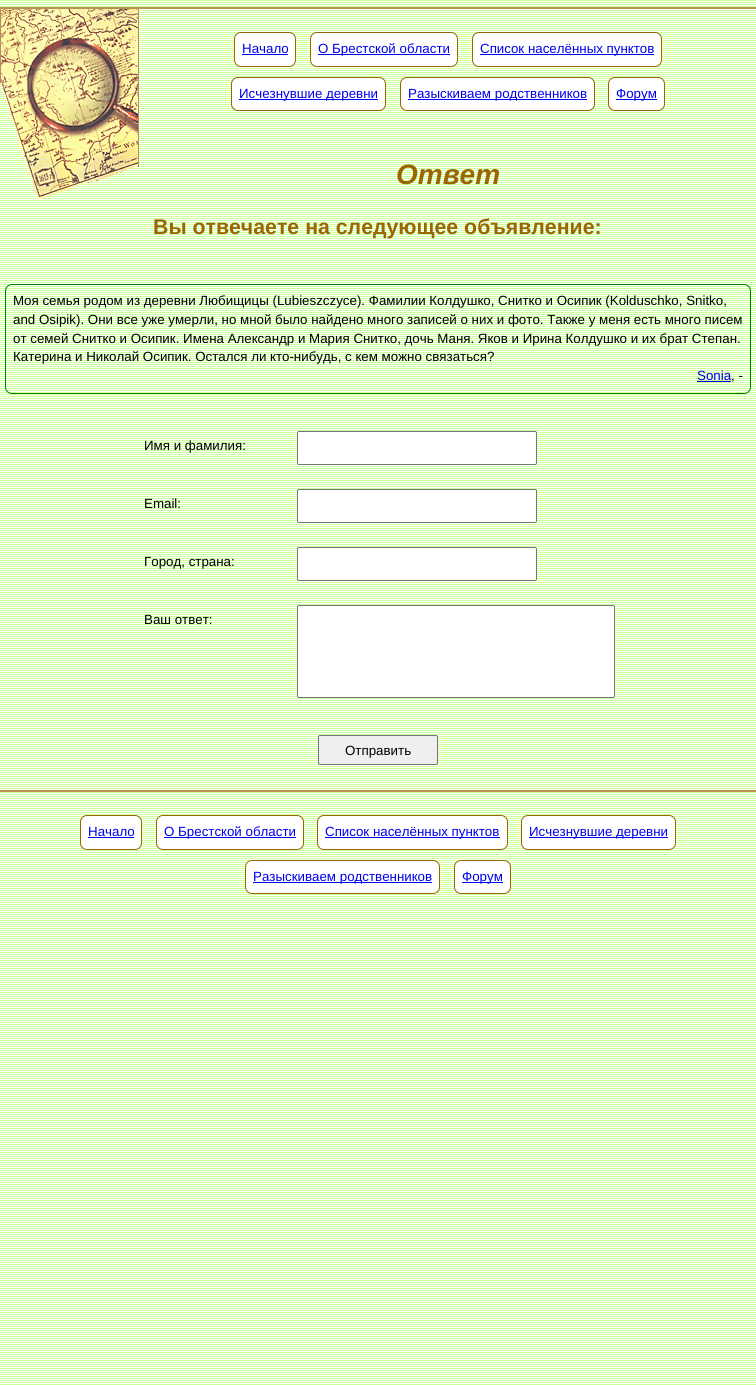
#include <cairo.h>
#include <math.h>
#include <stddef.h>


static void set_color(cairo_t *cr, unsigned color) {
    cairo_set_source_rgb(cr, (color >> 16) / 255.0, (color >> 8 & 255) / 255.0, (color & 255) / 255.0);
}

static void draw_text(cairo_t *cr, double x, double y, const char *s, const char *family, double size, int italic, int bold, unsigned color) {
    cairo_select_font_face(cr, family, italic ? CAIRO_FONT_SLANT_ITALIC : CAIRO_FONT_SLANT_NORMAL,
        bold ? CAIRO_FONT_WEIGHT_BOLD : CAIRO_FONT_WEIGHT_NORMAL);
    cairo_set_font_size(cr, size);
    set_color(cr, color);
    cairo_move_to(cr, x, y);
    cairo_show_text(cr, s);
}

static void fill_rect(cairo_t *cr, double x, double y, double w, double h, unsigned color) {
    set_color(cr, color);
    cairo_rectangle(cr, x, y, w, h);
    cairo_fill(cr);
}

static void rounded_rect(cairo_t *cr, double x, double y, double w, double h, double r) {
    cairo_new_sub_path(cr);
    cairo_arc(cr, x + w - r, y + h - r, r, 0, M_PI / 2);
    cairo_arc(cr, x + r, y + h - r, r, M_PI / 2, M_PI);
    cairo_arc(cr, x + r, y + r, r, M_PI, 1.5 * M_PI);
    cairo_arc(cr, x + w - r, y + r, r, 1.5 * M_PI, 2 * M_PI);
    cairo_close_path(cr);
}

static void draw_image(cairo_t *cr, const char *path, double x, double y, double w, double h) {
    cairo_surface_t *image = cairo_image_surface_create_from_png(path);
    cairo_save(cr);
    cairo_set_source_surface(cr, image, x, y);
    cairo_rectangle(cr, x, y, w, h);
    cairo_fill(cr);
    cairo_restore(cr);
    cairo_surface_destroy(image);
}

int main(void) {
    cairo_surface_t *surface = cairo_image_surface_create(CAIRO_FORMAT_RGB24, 756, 1385);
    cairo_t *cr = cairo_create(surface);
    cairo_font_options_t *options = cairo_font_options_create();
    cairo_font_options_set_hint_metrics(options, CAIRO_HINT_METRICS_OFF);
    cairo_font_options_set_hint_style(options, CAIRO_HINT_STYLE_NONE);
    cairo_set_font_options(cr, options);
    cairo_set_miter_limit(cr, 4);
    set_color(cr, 0xFFFFFF);
    cairo_paint(cr);
    draw_image(cr, "assets/img1.png", 0, 0, 756, 1385);
    draw_image(cr, "assets/img2.png", 0, 9, 139, 190);
    fill_rect(cr, 0, 7, 756, 2, 0xB9954F);
    set_color(cr, 0xFFFFFF);
    rounded_rect(cr, 234.5, 32.5, 61, 34, 6.5);
    cairo_fill_preserve(cr);
    set_color(cr, 0x996600);
    cairo_set_line_width(cr, 1);
    cairo_stroke(cr);
    draw_text(cr, 242, 53, "Начало", "Liberation Sans", 13.33, 0, 0, 0x0000EE);
    fill_rect(cr, 242, 54, 46, 1, 0x0000EE);
    set_color(cr, 0xFFFFFF);
    rounded_rect(cr, 310.5, 32.5, 147, 34, 6.5);
    cairo_fill_preserve(cr);
    set_color(cr, 0x996600);
    cairo_stroke(cr);
    fill_rect(cr, 318, 54, 132, 1, 0x0000EE);
    draw_text(cr, 318, 53, "О Брестской области", "Liberation Sans", 13.33, 0, 0, 0x0000EE);
    set_color(cr, 0xFFFFFF);
    rounded_rect(cr, 472.5, 32.5, 189, 34, 6.5);
    cairo_fill_preserve(cr);
    set_color(cr, 0x996600);
    cairo_stroke(cr);
    fill_rect(cr, 480, 54, 174, 1, 0x0000EE);
    draw_text(cr, 480, 53, "Список населённых пунктов", "Liberation Sans", 13.33, 0, 0, 0x0000EE);
    set_color(cr, 0xFFFFFF);
    rounded_rect(cr, 231.5, 77.5, 154, 33, 6.5);
    cairo_fill_preserve(cr);
    set_color(cr, 0x996600);
    cairo_stroke(cr);
    fill_rect(cr, 239, 99, 139, 1, 0x0000EE);
    draw_text(cr, 239, 98, "Исчезнувшие деревни", "Liberation Sans", 13.33, 0, 0, 0x0000EE);
    set_color(cr, 0xFFFFFF);
    rounded_rect(cr, 400.5, 77.5, 194, 33, 6.5);
    cairo_fill_preserve(cr);
    set_color(cr, 0x996600);
    cairo_stroke(cr);
    fill_rect(cr, 408, 99, 179, 1, 0x0000EE);
    draw_text(cr, 408, 98, "Разыскиваем родственников", "Liberation Sans", 13.33, 0, 0, 0x0000EE);
    set_color(cr, 0xFFFFFF);
    rounded_rect(cr, 608.5, 77.5, 56, 33, 6.5);
    cairo_fill_preserve(cr);
    set_color(cr, 0x996600);
    cairo_stroke(cr);
    fill_rect(cr, 616, 99, 41, 1, 0x0000EE);
    draw_text(cr, 616, 98, "Форум", "Liberation Sans", 13.33, 0, 0, 0x0000EE);
    draw_text(cr, 396, 184, "Ответ", "Liberation Sans", 28, 1, 1, 0x996600);
    draw_text(cr, 153, 234, "Вы отвечаете на следующее объявление:", "Liberation Sans", 21.3, 0, 1, 0x996600);
    rounded_rect(cr, 5.5, 284.5, 745, 109, 6.5);
    set_color(cr, 0x008000);
    cairo_stroke(cr);
    draw_text(cr, 13, 305, "Моя семья родом из деревни Любищицы (Lubieszczyce). Фамилии Колдушко, Снитко и Осипик (Kolduschko, Snitko,", "Liberation Sans", 13.33, 0, 0, 0x000000);
    draw_text(cr, 13, 324, "and Osipik). Они все уже умерли, но мной было найдено много записей о них и фото. Также у меня есть много писем", "Liberation Sans", 13.33, 0, 0, 0x000000);
    draw_text(cr, 13, 343, "от семей Снитко и Осипик. Имена Александр и Мария Снитко, дочь Маня. Яков и Ирина Колдушко и их брат Степан.", "Liberation Sans", 13.33, 0, 0, 0x000000);
    draw_text(cr, 13, 361, "Катерина и Николай Осипик. Остался ли кто-нибудь, с кем можно связаться?", "Liberation Sans", 13.33, 0, 0, 0x000000);
    draw_text(cr, 697, 380, "Sonia", "Liberation Sans", 13.33, 0, 0, 0x0000EE);
    fill_rect(cr, 697, 381, 34, 1, 0x0000EE);
    draw_text(cr, 731, 380, ", -", "Liberation Sans", 13.33, 0, 0, 0x000000);
    draw_text(cr, 144, 450, "Имя и фамилия:", "Liberation Sans", 13.33, 0, 0, 0x000000);
    set_color(cr, 0xFFFFFF);
    rounded_rect(cr, 297.5, 431.5, 239, 33, 1.5);
    cairo_fill_preserve(cr);
    set_color(cr, 0x767676);
    cairo_stroke(cr);
    draw_text(cr, 144, 508, "Email:", "Liberation Sans", 13.33, 0, 0, 0x000000);
    set_color(cr, 0xFFFFFF);
    rounded_rect(cr, 297.5, 489.5, 239, 33, 1.5);
    cairo_fill_preserve(cr);
    set_color(cr, 0x767676);
    cairo_stroke(cr);
    draw_text(cr, 144, 566, "Город, страна:", "Liberation Sans", 13.33, 0, 0, 0x000000);
    set_color(cr, 0xFFFFFF);
    rounded_rect(cr, 297.5, 547.5, 239, 33, 1.5);
    cairo_fill_preserve(cr);
    set_color(cr, 0x767676);
    cairo_stroke(cr);
    draw_text(cr, 144, 624, "Ваш ответ:", "Liberation Sans", 13.33, 0, 0, 0x000000);
    set_color(cr, 0xFFFFFF);
    rounded_rect(cr, 297.5, 605.5, 317, 92, 1.5);
    cairo_fill_preserve(cr);
    set_color(cr, 0x767676);
    cairo_stroke(cr);
    set_color(cr, 0xEFEFEF);
    rounded_rect(cr, 318.5, 735.5, 119, 29, 1.5);
    cairo_fill_preserve(cr);
    set_color(cr, 0x767676);
    cairo_stroke(cr);
    draw_text(cr, 345, 755, "Отправить", "Liberation Sans", 13.33, 0, 0, 0x000000);
    fill_rect(cr, 0, 790, 756, 2, 0xB9954F);
    set_color(cr, 0xFFFFFF);
    rounded_rect(cr, 80.5, 815.5, 61, 34, 6.5);
    cairo_fill_preserve(cr);
    set_color(cr, 0x996600);
    cairo_stroke(cr);
    draw_text(cr, 88, 836, "Начало", "Liberation Sans", 13.33, 0, 0, 0x0000EE);
    fill_rect(cr, 88, 837, 46, 1, 0x0000EE);
    set_color(cr, 0xFFFFFF);
    rounded_rect(cr, 156.5, 815.5, 147, 34, 6.5);
    cairo_fill_preserve(cr);
    set_color(cr, 0x996600);
    cairo_stroke(cr);
    fill_rect(cr, 164, 837, 132, 1, 0x0000EE);
    draw_text(cr, 164, 836, "О Брестской области", "Liberation Sans", 13.33, 0, 0, 0x0000EE);
    set_color(cr, 0xFFFFFF);
    rounded_rect(cr, 317.5, 815.5, 190, 34, 6.5);
    cairo_fill_preserve(cr);
    set_color(cr, 0x996600);
    cairo_stroke(cr);
    fill_rect(cr, 325, 837, 175, 1, 0x0000EE);
    draw_text(cr, 325, 836, "Список населённых пунктов", "Liberation Sans", 13.33, 0, 0, 0x0000EE);
    set_color(cr, 0xFFFFFF);
    rounded_rect(cr, 521.5, 815.5, 154, 34, 6.5);
    cairo_fill_preserve(cr);
    set_color(cr, 0x996600);
    cairo_stroke(cr);
    fill_rect(cr, 529, 837, 139, 1, 0x0000EE);
    draw_text(cr, 529, 836, "Исчезнувшие деревни", "Liberation Sans", 13.33, 0, 0, 0x0000EE);
    set_color(cr, 0xFFFFFF);
    rounded_rect(cr, 245.5, 860.5, 194, 33, 6.5);
    cairo_fill_preserve(cr);
    set_color(cr, 0x996600);
    cairo_stroke(cr);
    fill_rect(cr, 253, 882, 179, 1, 0x0000EE);
    draw_text(cr, 253, 881, "Разыскиваем родственников", "Liberation Sans", 13.33, 0, 0, 0x0000EE);
    set_color(cr, 0xFFFFFF);
    rounded_rect(cr, 454.5, 860.5, 56, 33, 6.5);
    cairo_fill_preserve(cr);
    set_color(cr, 0x996600);
    cairo_stroke(cr);
    fill_rect(cr, 462, 882, 41, 1, 0x0000EE);
    draw_text(cr, 462, 881, "Форум", "Liberation Sans", 13.33, 0, 0, 0x0000EE);
    cairo_surface_write_to_png(surface, "output.png");
    cairo_font_options_destroy(options);
    cairo_destroy(cr);
    cairo_surface_destroy(surface);
    return 0;
}
